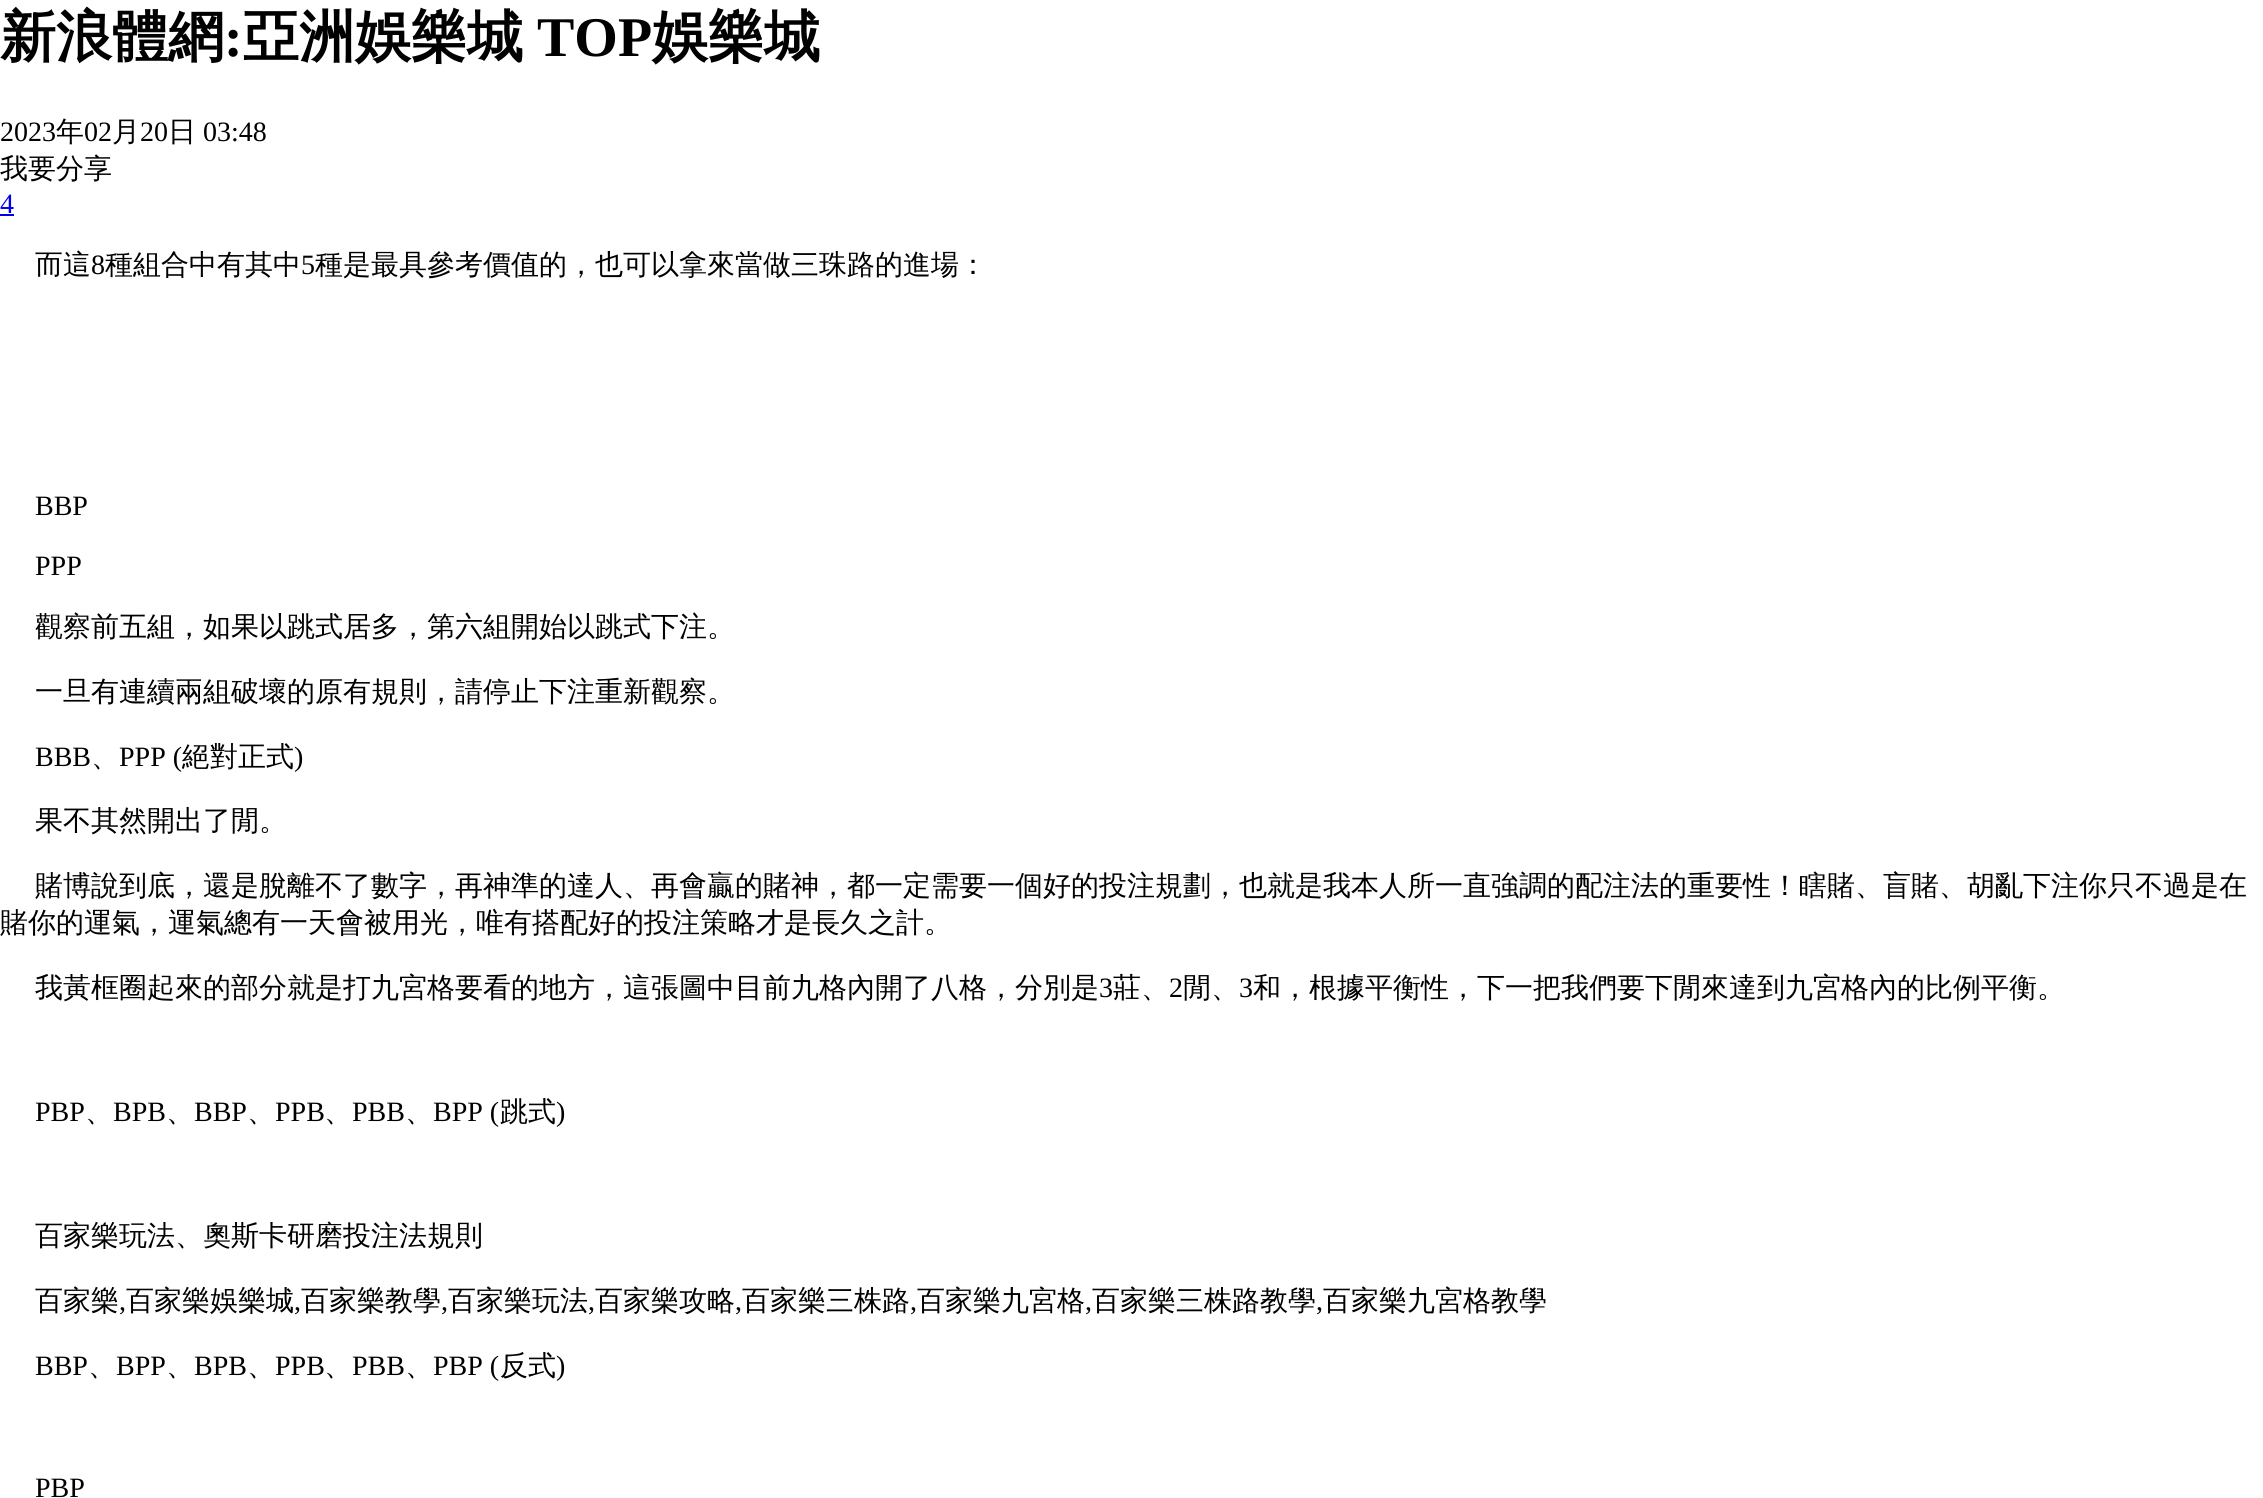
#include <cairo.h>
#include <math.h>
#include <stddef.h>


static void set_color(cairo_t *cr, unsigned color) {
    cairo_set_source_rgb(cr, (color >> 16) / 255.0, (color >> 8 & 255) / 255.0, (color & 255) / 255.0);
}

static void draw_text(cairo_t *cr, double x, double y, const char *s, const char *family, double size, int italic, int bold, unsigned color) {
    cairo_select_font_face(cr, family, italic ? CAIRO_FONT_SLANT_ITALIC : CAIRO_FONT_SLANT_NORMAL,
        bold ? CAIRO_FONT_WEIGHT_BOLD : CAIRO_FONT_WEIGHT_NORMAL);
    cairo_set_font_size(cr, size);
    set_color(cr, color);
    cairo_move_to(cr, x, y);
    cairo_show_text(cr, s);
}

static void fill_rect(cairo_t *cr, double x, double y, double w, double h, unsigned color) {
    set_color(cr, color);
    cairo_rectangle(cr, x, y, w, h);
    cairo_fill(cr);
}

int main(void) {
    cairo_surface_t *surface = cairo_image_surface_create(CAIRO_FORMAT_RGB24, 2263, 1498);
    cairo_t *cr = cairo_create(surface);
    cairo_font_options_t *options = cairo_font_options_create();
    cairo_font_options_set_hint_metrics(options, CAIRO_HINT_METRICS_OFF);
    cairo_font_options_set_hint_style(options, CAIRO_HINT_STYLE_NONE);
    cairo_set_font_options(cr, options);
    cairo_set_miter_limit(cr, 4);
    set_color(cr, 0xFFFFFF);
    cairo_paint(cr);
    draw_text(cr, 0, 56, "新浪體網", "WenQuanYi Zen Hei", 56, 0, 1, 0x000000);
    draw_text(cr, 224, 56, ":", "Liberation Serif", 56, 0, 1, 0x000000);
    draw_text(cr, 243, 56, "亞洲娛樂城", "WenQuanYi Zen Hei", 56, 0, 1, 0x000000);
    draw_text(cr, 537, 56, "TOP", "Liberation Serif", 56, 0, 1, 0x000000);
    draw_text(cr, 652, 56, "娛樂城", "WenQuanYi Zen Hei", 56, 0, 1, 0x000000);
    draw_text(cr, 0, 141, "2023", "Liberation Serif", 28, 0, 0, 0x000000);
    draw_text(cr, 56, 141, "年", "WenQuanYi Zen Hei Medium", 28, 0, 0, 0x000000);
    draw_text(cr, 84, 141, "02", "Liberation Serif", 28, 0, 0, 0x000000);
    draw_text(cr, 112, 141, "月", "WenQuanYi Zen Hei Medium", 28, 0, 0, 0x000000);
    draw_text(cr, 140, 141, "20", "Liberation Serif", 28, 0, 0, 0x000000);
    draw_text(cr, 168, 141, "日", "WenQuanYi Zen Hei Medium", 28, 0, 0, 0x000000);
    draw_text(cr, 203, 141, "03:48", "Liberation Serif", 28, 0, 0, 0x000000);
    draw_text(cr, 0, 178, "我要分享", "WenQuanYi Zen Hei Medium", 28, 0, 0, 0x000000);
    draw_text(cr, 0, 213, "4", "Liberation Serif", 28, 0, 0, 0x0000EE);
    fill_rect(cr, 0, 214, 14, 2, 0x0000EE);
    draw_text(cr, 35, 274, "而這", "WenQuanYi Zen Hei Medium", 28, 0, 0, 0x000000);
    draw_text(cr, 91, 274, "8", "Liberation Serif", 28, 0, 0, 0x000000);
    draw_text(cr, 105, 274, "種組合中有其中", "WenQuanYi Zen Hei Medium", 28, 0, 0, 0x000000);
    draw_text(cr, 301, 274, "5", "Liberation Serif", 28, 0, 0, 0x000000);
    draw_text(cr, 315, 274, "種是最具參考價值的，也可以拿來當做三珠路的進場：", "WenQuanYi Zen Hei Medium", 28, 0, 0, 0x000000);
    draw_text(cr, 35, 515, "BBP", "Liberation Serif", 28, 0, 0, 0x000000);
    draw_text(cr, 35, 575, "PPP", "Liberation Serif", 28, 0, 0, 0x000000);
    draw_text(cr, 35, 636, "觀察前五組，如果以跳式居多，第六組開始以跳式下注。", "WenQuanYi Zen Hei Medium", 28, 0, 0, 0x000000);
    draw_text(cr, 35, 701, "一旦有連續兩組破壞的原有規則，請停止下注重新觀察。", "WenQuanYi Zen Hei Medium", 28, 0, 0, 0x000000);
    draw_text(cr, 35, 766, "BBB", "Liberation Serif", 28, 0, 0, 0x000000);
    draw_text(cr, 91, 766, "、", "WenQuanYi Zen Hei Medium", 28, 0, 0, 0x000000);
    draw_text(cr, 119, 766, "PPP (", "Liberation Serif", 28, 0, 0, 0x000000);
    draw_text(cr, 182, 766, "絕對正式", "WenQuanYi Zen Hei Medium", 28, 0, 0, 0x000000);
    draw_text(cr, 294, 766, ")", "Liberation Serif", 28, 0, 0, 0x000000);
    draw_text(cr, 35, 830, "果不其然開出了閒。", "WenQuanYi Zen Hei Medium", 28, 0, 0, 0x000000);
    draw_text(cr, 35, 895, "賭博說到底，還是脫離不了數字，再神準的達人、再會贏的賭神，都一定需要一個好的投注規劃，也就是我本人所一直強調的配注法的重要性！瞎賭、盲賭、胡亂下注你只不過是在", "WenQuanYi Zen Hei Medium", 28, 0, 0, 0x000000);
    draw_text(cr, 0, 932, "賭你的運氣，運氣總有一天會被用光，唯有搭配好的投注策略才是長久之計。", "WenQuanYi Zen Hei Medium", 28, 0, 0, 0x000000);
    draw_text(cr, 35, 997, "我黃框圈起來的部分就是打九宮格要看的地方，這張圖中目前九格內開了八格，分別是", "WenQuanYi Zen Hei Medium", 28, 0, 0, 0x000000);
    draw_text(cr, 1099, 997, "3", "Liberation Serif", 28, 0, 0, 0x000000);
    draw_text(cr, 1113, 997, "莊、", "WenQuanYi Zen Hei Medium", 28, 0, 0, 0x000000);
    draw_text(cr, 1169, 997, "2", "Liberation Serif", 28, 0, 0, 0x000000);
    draw_text(cr, 1183, 997, "閒、", "WenQuanYi Zen Hei Medium", 28, 0, 0, 0x000000);
    draw_text(cr, 1239, 997, "3", "Liberation Serif", 28, 0, 0, 0x000000);
    draw_text(cr, 1253, 997, "和，根據平衡性，下一把我們要下閒來達到九宮格內的比例平衡。", "WenQuanYi Zen Hei Medium", 28, 0, 0, 0x000000);
    draw_text(cr, 35, 1121, "PBP", "Liberation Serif", 28, 0, 0, 0x000000);
    draw_text(cr, 85, 1121, "、", "WenQuanYi Zen Hei Medium", 28, 0, 0, 0x000000);
    draw_text(cr, 113, 1121, "BPB", "Liberation Serif", 28, 0, 0, 0x000000);
    draw_text(cr, 166, 1121, "、", "WenQuanYi Zen Hei Medium", 28, 0, 0, 0x000000);
    draw_text(cr, 194, 1121, "BBP", "Liberation Serif", 28, 0, 0, 0x000000);
    draw_text(cr, 247, 1121, "、", "WenQuanYi Zen Hei Medium", 28, 0, 0, 0x000000);
    draw_text(cr, 275, 1121, "PPB", "Liberation Serif", 28, 0, 0, 0x000000);
    draw_text(cr, 324, 1121, "、", "WenQuanYi Zen Hei Medium", 28, 0, 0, 0x000000);
    draw_text(cr, 352, 1121, "PBB", "Liberation Serif", 28, 0, 0, 0x000000);
    draw_text(cr, 405, 1121, "、", "WenQuanYi Zen Hei Medium", 28, 0, 0, 0x000000);
    draw_text(cr, 433, 1121, "BPP (", "Liberation Serif", 28, 0, 0, 0x000000);
    draw_text(cr, 500, 1121, "跳式", "WenQuanYi Zen Hei Medium", 28, 0, 0, 0x000000);
    draw_text(cr, 556, 1121, ")", "Liberation Serif", 28, 0, 0, 0x000000);
    draw_text(cr, 35, 1245, "百家樂玩法、奧斯卡研磨投注法規則", "WenQuanYi Zen Hei Medium", 28, 0, 0, 0x000000);
    draw_text(cr, 35, 1310, "百家樂", "WenQuanYi Zen Hei Medium", 28, 0, 0, 0x000000);
    draw_text(cr, 119, 1310, ",", "Liberation Serif", 28, 0, 0, 0x000000);
    draw_text(cr, 126, 1310, "百家樂娛樂城", "WenQuanYi Zen Hei Medium", 28, 0, 0, 0x000000);
    draw_text(cr, 294, 1310, ",", "Liberation Serif", 28, 0, 0, 0x000000);
    draw_text(cr, 301, 1310, "百家樂教學", "WenQuanYi Zen Hei Medium", 28, 0, 0, 0x000000);
    draw_text(cr, 441, 1310, ",", "Liberation Serif", 28, 0, 0, 0x000000);
    draw_text(cr, 448, 1310, "百家樂玩法", "WenQuanYi Zen Hei Medium", 28, 0, 0, 0x000000);
    draw_text(cr, 588, 1310, ",", "Liberation Serif", 28, 0, 0, 0x000000);
    draw_text(cr, 595, 1310, "百家樂攻略", "WenQuanYi Zen Hei Medium", 28, 0, 0, 0x000000);
    draw_text(cr, 735, 1310, ",", "Liberation Serif", 28, 0, 0, 0x000000);
    draw_text(cr, 742, 1310, "百家樂三株路", "WenQuanYi Zen Hei Medium", 28, 0, 0, 0x000000);
    draw_text(cr, 910, 1310, ",", "Liberation Serif", 28, 0, 0, 0x000000);
    draw_text(cr, 917, 1310, "百家樂九宮格", "WenQuanYi Zen Hei Medium", 28, 0, 0, 0x000000);
    draw_text(cr, 1085, 1310, ",", "Liberation Serif", 28, 0, 0, 0x000000);
    draw_text(cr, 1092, 1310, "百家樂三株路教學", "WenQuanYi Zen Hei Medium", 28, 0, 0, 0x000000);
    draw_text(cr, 1316, 1310, ",", "Liberation Serif", 28, 0, 0, 0x000000);
    draw_text(cr, 1323, 1310, "百家樂九宮格教學", "WenQuanYi Zen Hei Medium", 28, 0, 0, 0x000000);
    draw_text(cr, 35, 1375, "BBP", "Liberation Serif", 28, 0, 0, 0x000000);
    draw_text(cr, 88, 1375, "、", "WenQuanYi Zen Hei Medium", 28, 0, 0, 0x000000);
    draw_text(cr, 116, 1375, "BPP", "Liberation Serif", 28, 0, 0, 0x000000);
    draw_text(cr, 166, 1375, "、", "WenQuanYi Zen Hei Medium", 28, 0, 0, 0x000000);
    draw_text(cr, 194, 1375, "BPB", "Liberation Serif", 28, 0, 0, 0x000000);
    draw_text(cr, 247, 1375, "、", "WenQuanYi Zen Hei Medium", 28, 0, 0, 0x000000);
    draw_text(cr, 275, 1375, "PPB", "Liberation Serif", 28, 0, 0, 0x000000);
    draw_text(cr, 324, 1375, "、", "WenQuanYi Zen Hei Medium", 28, 0, 0, 0x000000);
    draw_text(cr, 352, 1375, "PBB", "Liberation Serif", 28, 0, 0, 0x000000);
    draw_text(cr, 405, 1375, "、", "WenQuanYi Zen Hei Medium", 28, 0, 0, 0x000000);
    draw_text(cr, 433, 1375, "PBP (", "Liberation Serif", 28, 0, 0, 0x000000);
    draw_text(cr, 500, 1375, "反式", "WenQuanYi Zen Hei Medium", 28, 0, 0, 0x000000);
    draw_text(cr, 556, 1375, ")", "Liberation Serif", 28, 0, 0, 0x000000);
    draw_text(cr, 35, 1497, "PBP", "Liberation Serif", 28, 0, 0, 0x000000);
    cairo_surface_write_to_png(surface, "output.png");
    cairo_font_options_destroy(options);
    cairo_destroy(cr);
    cairo_surface_destroy(surface);
    return 0;
}
